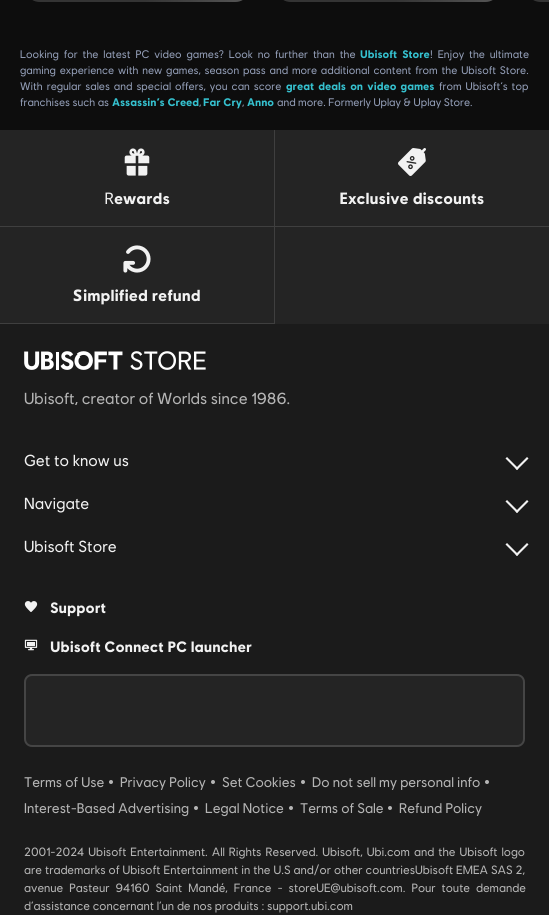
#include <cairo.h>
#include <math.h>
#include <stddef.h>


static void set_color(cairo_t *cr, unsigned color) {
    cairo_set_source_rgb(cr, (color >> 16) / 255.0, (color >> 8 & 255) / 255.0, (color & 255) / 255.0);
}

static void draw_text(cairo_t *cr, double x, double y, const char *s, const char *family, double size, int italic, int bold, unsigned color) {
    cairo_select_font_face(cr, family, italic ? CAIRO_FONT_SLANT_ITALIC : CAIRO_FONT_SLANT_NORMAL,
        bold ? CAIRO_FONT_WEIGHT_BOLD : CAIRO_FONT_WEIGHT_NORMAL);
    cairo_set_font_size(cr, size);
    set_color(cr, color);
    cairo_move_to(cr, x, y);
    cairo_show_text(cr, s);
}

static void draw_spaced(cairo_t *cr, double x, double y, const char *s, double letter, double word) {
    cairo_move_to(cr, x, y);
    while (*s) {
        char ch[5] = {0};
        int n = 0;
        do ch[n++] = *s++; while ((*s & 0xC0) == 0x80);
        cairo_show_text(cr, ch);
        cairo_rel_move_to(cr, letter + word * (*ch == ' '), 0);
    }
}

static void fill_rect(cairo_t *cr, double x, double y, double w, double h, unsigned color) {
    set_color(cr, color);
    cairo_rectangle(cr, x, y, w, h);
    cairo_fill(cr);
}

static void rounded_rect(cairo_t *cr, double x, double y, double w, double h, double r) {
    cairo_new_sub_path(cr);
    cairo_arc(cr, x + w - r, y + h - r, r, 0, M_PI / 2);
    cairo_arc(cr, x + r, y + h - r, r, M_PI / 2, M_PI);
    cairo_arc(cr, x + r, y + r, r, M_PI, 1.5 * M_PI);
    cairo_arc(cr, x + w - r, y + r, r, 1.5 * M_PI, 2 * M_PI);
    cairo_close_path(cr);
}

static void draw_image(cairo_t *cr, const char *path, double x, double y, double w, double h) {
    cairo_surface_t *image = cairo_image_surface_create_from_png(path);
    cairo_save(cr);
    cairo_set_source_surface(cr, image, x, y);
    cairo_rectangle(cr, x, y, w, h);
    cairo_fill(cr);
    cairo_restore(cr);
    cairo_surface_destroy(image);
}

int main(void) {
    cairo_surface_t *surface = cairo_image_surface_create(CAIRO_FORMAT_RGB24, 549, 915);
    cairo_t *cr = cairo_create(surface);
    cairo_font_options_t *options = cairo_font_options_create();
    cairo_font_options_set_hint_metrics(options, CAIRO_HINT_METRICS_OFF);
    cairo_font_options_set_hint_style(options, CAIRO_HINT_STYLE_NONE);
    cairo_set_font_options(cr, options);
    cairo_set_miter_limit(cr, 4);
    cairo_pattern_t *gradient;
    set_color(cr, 0x0D0D0D);
    cairo_paint(cr);
    set_color(cr, 0x343434);
    rounded_rect(cr, 24, -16, 227, 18, 16);
    cairo_fill(cr);
    gradient = cairo_pattern_create_linear(84, -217, 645, 107);
    cairo_pattern_add_color_stop_rgba(gradient, 0, 0, 0, 0, 0);
    cairo_pattern_add_color_stop_rgba(gradient, 0.25, 1, 1, 1, 0);
    cairo_pattern_add_color_stop_rgba(gradient, 0.5, 1, 1, 1, 0.3);
    cairo_pattern_add_color_stop_rgba(gradient, 0.75, 1, 1, 1, 0);
    cairo_pattern_add_color_stop_rgba(gradient, 1, 0, 0, 0, 0);
    cairo_set_source(cr, gradient);
    cairo_pattern_destroy(gradient);
    rounded_rect(cr, 24, -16, 227, 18, 16);
    cairo_fill(cr);
    set_color(cr, 0x343434);
    rounded_rect(cr, 275, -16, 226, 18, 16);
    cairo_fill(cr);
    gradient = cairo_pattern_create_linear(335, -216, 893, 106);
    cairo_pattern_add_color_stop_rgba(gradient, 0, 0, 0, 0, 0);
    cairo_pattern_add_color_stop_rgba(gradient, 0.25, 1, 1, 1, 0);
    cairo_pattern_add_color_stop_rgba(gradient, 0.5, 1, 1, 1, 0.3);
    cairo_pattern_add_color_stop_rgba(gradient, 0.75, 1, 1, 1, 0);
    cairo_pattern_add_color_stop_rgba(gradient, 1, 0, 0, 0, 0);
    cairo_set_source(cr, gradient);
    cairo_pattern_destroy(gradient);
    rounded_rect(cr, 275, -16, 226, 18, 16);
    cairo_fill(cr);
    set_color(cr, 0x343434);
    cairo_new_path(cr);
    cairo_move_to(cr, 541, -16);
    cairo_line_to(cr, 549, -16);
    cairo_line_to(cr, 549, 2);
    cairo_line_to(cr, 541, 2);
    cairo_curve_to(cr, 532, 2, 525, -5, 525, -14);
    cairo_line_to(cr, 525, 0);
    cairo_curve_to(cr, 525, -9, 532, -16, 541, -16);
    cairo_close_path(cr);
    cairo_fill(cr);
    cairo_select_font_face(cr, "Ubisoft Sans", CAIRO_FONT_SLANT_NORMAL, CAIRO_FONT_WEIGHT_NORMAL);
    cairo_set_font_size(cr, 11);
    set_color(cr, 0x929DB6);
    draw_spaced(cr, 20, 58, "Looking for the latest PC video games? Look no further than the", 0, 2.4);
    cairo_select_font_face(cr, "Ubisoft Sans", CAIRO_FONT_SLANT_NORMAL, CAIRO_FONT_WEIGHT_BOLD);
    set_color(cr, 0x35C1CF);
    draw_spaced(cr, 360, 58, "Ubisoft Store", 0, 2.4);
    cairo_select_font_face(cr, "Ubisoft Sans", CAIRO_FONT_SLANT_NORMAL, CAIRO_FONT_WEIGHT_NORMAL);
    set_color(cr, 0x929DB6);
    draw_spaced(cr, 430, 58, "! Enjoy the ultimate", 0, 2.4);
    draw_spaced(cr, 20, 74, "gaming experience with new games, season pass and more additional content from the Ubisoft Store.", 0, 1.3);
    draw_spaced(cr, 20, 90, "With regular sales and special offers, you can score", 0, 1.5);
    cairo_select_font_face(cr, "Ubisoft Sans", CAIRO_FONT_SLANT_NORMAL, CAIRO_FONT_WEIGHT_BOLD);
    set_color(cr, 0x35C1CF);
    draw_spaced(cr, 286, 90, "great deals on video games", 0, 1.5);
    cairo_select_font_face(cr, "Ubisoft Sans", CAIRO_FONT_SLANT_NORMAL, CAIRO_FONT_WEIGHT_NORMAL);
    set_color(cr, 0x929DB6);
    draw_spaced(cr, 439, 90, "from Ubisoft’s top", 0, 1.5);
    draw_text(cr, 20, 106, "franchises such as", "Ubisoft Sans", 11, 0, 0, 0x929DB6);
    draw_text(cr, 112, 106, "Assassin’s Creed", "Ubisoft Sans", 11, 0, 1, 0x35C1CF);
    draw_text(cr, 199, 106, ",", "Ubisoft Sans", 11, 0, 0, 0x929DB6);
    draw_text(cr, 203, 106, "Far Cry", "Ubisoft Sans", 11, 0, 1, 0x35C1CF);
    draw_text(cr, 242, 106, ",", "Ubisoft Sans", 11, 0, 0, 0x929DB6);
    draw_text(cr, 247, 106, "Anno", "Ubisoft Sans", 11, 0, 1, 0x35C1CF);
    draw_text(cr, 277, 106, "and more. Formerly Uplay & Uplay Store.", "Ubisoft Sans", 11, 0, 0, 0x929DB6);
    fill_rect(cr, 0, 324, 549, 591, 0x1B1B1B);
    fill_rect(cr, 0, 130, 549, 194, 0x242424);
    fill_rect(cr, 274, 130, 1, 194, 0x3F3F3F);
    fill_rect(cr, 0, 226, 549, 1, 0x3F3F3F);
    draw_image(cr, "assets/img1.png", 124, 148, 26, 28);
    draw_text(cr, 104, 204, "R", "Noto Sans", 16, 0, 0, 0xF2F2F2);
    draw_text(cr, 114, 204, "ewards", "Ubisoft Sans", 16, 0, 1, 0xF2F2F2);
    draw_image(cr, "assets/img2.png", 398, 148, 28, 28);
    draw_text(cr, 339, 204, "E", "Noto Sans", 16, 0, 1, 0xF2F2F2);
    draw_text(cr, 348, 204, "xclusive discounts", "Ubisoft Sans", 16, 0, 1, 0xF2F2F2);
    fill_rect(cr, 0, 323, 275, 1, 0x3F3F3F);
    draw_image(cr, "assets/img3.png", 123, 245, 28, 28);
    draw_text(cr, 73, 301, "S", "Noto Sans ExtraBold", 16, 0, 0, 0xF2F2F2);
    draw_text(cr, 83, 301, "implified refund", "Ubisoft Sans", 16, 0, 1, 0xF2F2F2);
    draw_image(cr, "assets/img4.png", 24, 351, 182, 19);
    draw_text(cr, 24, 404, "Ubisoft, creator of Worlds since 1986.", "Ubisoft Sans", 16, 0, 0, 0xB5B5B5);
    draw_text(cr, 24, 466, "Get to know us", "Ubisoft Sans", 16, 0, 0, 0xF2F2F2);
    cairo_new_path(cr);
    cairo_move_to(cr, 528.5, 458.5);
    cairo_line_to(cr, 517, 470);
    cairo_line_to(cr, 515.5, 468.5);
    cairo_line_to(cr, 527, 457);
    cairo_close_path(cr);
    cairo_fill(cr);
    cairo_new_path(cr);
    cairo_move_to(cr, 518.5, 468.5);
    cairo_line_to(cr, 517, 470);
    cairo_line_to(cr, 505.5, 458.5);
    cairo_line_to(cr, 507, 457);
    cairo_close_path(cr);
    cairo_fill(cr);
    draw_text(cr, 24, 509, "Navigate", "Ubisoft Sans", 16, 0, 0, 0xF2F2F2);
    cairo_new_path(cr);
    cairo_move_to(cr, 528.5, 501.5);
    cairo_line_to(cr, 517, 513);
    cairo_line_to(cr, 515.5, 511.5);
    cairo_line_to(cr, 527, 500);
    cairo_close_path(cr);
    cairo_fill(cr);
    cairo_new_path(cr);
    cairo_move_to(cr, 518.5, 511.5);
    cairo_line_to(cr, 517, 513);
    cairo_line_to(cr, 505.5, 501.5);
    cairo_line_to(cr, 507, 500);
    cairo_close_path(cr);
    cairo_fill(cr);
    draw_text(cr, 24, 552, "Ubisoft Store", "Ubisoft Sans", 16, 0, 0, 0xF2F2F2);
    cairo_new_path(cr);
    cairo_move_to(cr, 528.5, 544.5);
    cairo_line_to(cr, 517, 556);
    cairo_line_to(cr, 515.5, 554.5);
    cairo_line_to(cr, 527, 543);
    cairo_close_path(cr);
    cairo_fill(cr);
    cairo_new_path(cr);
    cairo_move_to(cr, 518.5, 554.5);
    cairo_line_to(cr, 517, 556);
    cairo_line_to(cr, 505.5, 544.5);
    cairo_line_to(cr, 507, 543);
    cairo_close_path(cr);
    cairo_fill(cr);
    draw_image(cr, "assets/img5.png", 24, 601, 14, 11);
    draw_text(cr, 50, 613, "Support", "Ubisoft Sans", 15, 0, 1, 0xF2F2F2);
    draw_image(cr, "assets/img6.png", 24, 639, 14, 12);
    draw_text(cr, 50, 652, "Ubisoft Connect PC launcher", "Ubisoft Sans", 15, 0, 1, 0xF2F2F2);
    set_color(cr, 0x242424);
    rounded_rect(cr, 24, 674, 501, 73, 8);
    cairo_fill(cr);
    rounded_rect(cr, 25, 675, 499, 71, 7);
    cairo_set_source_rgba(cr, 1, 1, 1, 0.15);
    cairo_stroke(cr);
    draw_text(cr, 24, 787, "Terms of Use", "Ubisoft Sans", 14, 0, 0, 0xB5B5B5);
    cairo_new_path(cr);
    cairo_arc(cr, 111, 782, 2, 0, 2 * M_PI);
    cairo_fill(cr);
    draw_text(cr, 120, 787, "Privacy Policy", "Ubisoft Sans", 14, 0, 0, 0xB5B5B5);
    cairo_new_path(cr);
    cairo_arc(cr, 213, 782, 2, 0, 2 * M_PI);
    cairo_fill(cr);
    draw_text(cr, 222, 787, "Set Cookies", "Ubisoft Sans", 14, 0, 0, 0xB5B5B5);
    cairo_new_path(cr);
    cairo_arc(cr, 303, 782, 2, 0, 2 * M_PI);
    cairo_fill(cr);
    draw_text(cr, 312, 787, "Do not sell my personal info", "Ubisoft Sans", 14, 0, 0, 0xB5B5B5);
    cairo_new_path(cr);
    cairo_arc(cr, 487, 782, 2, 0, 2 * M_PI);
    cairo_fill(cr);
    draw_text(cr, 24, 813, "Interest-Based Advertising", "Ubisoft Sans", 14, 0, 0, 0xB5B5B5);
    cairo_new_path(cr);
    cairo_arc(cr, 196, 808, 2, 0, 2 * M_PI);
    cairo_fill(cr);
    draw_text(cr, 205, 813, "Legal Notice", "Ubisoft Sans", 14, 0, 0, 0xB5B5B5);
    cairo_new_path(cr);
    cairo_arc(cr, 291, 808, 2, 0, 2 * M_PI);
    cairo_fill(cr);
    draw_text(cr, 300, 813, "Terms of Sale", "Ubisoft Sans", 14, 0, 0, 0xB5B5B5);
    cairo_new_path(cr);
    cairo_arc(cr, 390, 808, 2, 0, 2 * M_PI);
    cairo_fill(cr);
    draw_text(cr, 399, 813, "Refund Policy", "Ubisoft Sans", 14, 0, 0, 0xB5B5B5);
    cairo_set_font_size(cr, 12);
    draw_spaced(cr, 24, 856, "2001-2024 Ubisoft Entertainment. All Rights Reserved. Ubisoft, Ubi.com and the Ubisoft logo", 0, 1.25);
    draw_spaced(cr, 24, 874, "are trademarks of Ubisoft Entertainment in the U.S and/or other countriesUbisoft EMEA SAS 2,", 0, 0.25);
    draw_spaced(cr, 24, 892, "avenue Pasteur 94160 Saint Mandé, France - storeUE@ubisoft.com. Pour toute demande", 0, 3.25);
    draw_text(cr, 24, 910, "d’assistance concernant l’un de nos produits : support.ubi.com", "Ubisoft Sans", 12, 0, 0, 0xB5B5B5);
    cairo_surface_write_to_png(surface, "output.png");
    cairo_font_options_destroy(options);
    cairo_destroy(cr);
    cairo_surface_destroy(surface);
    return 0;
}
